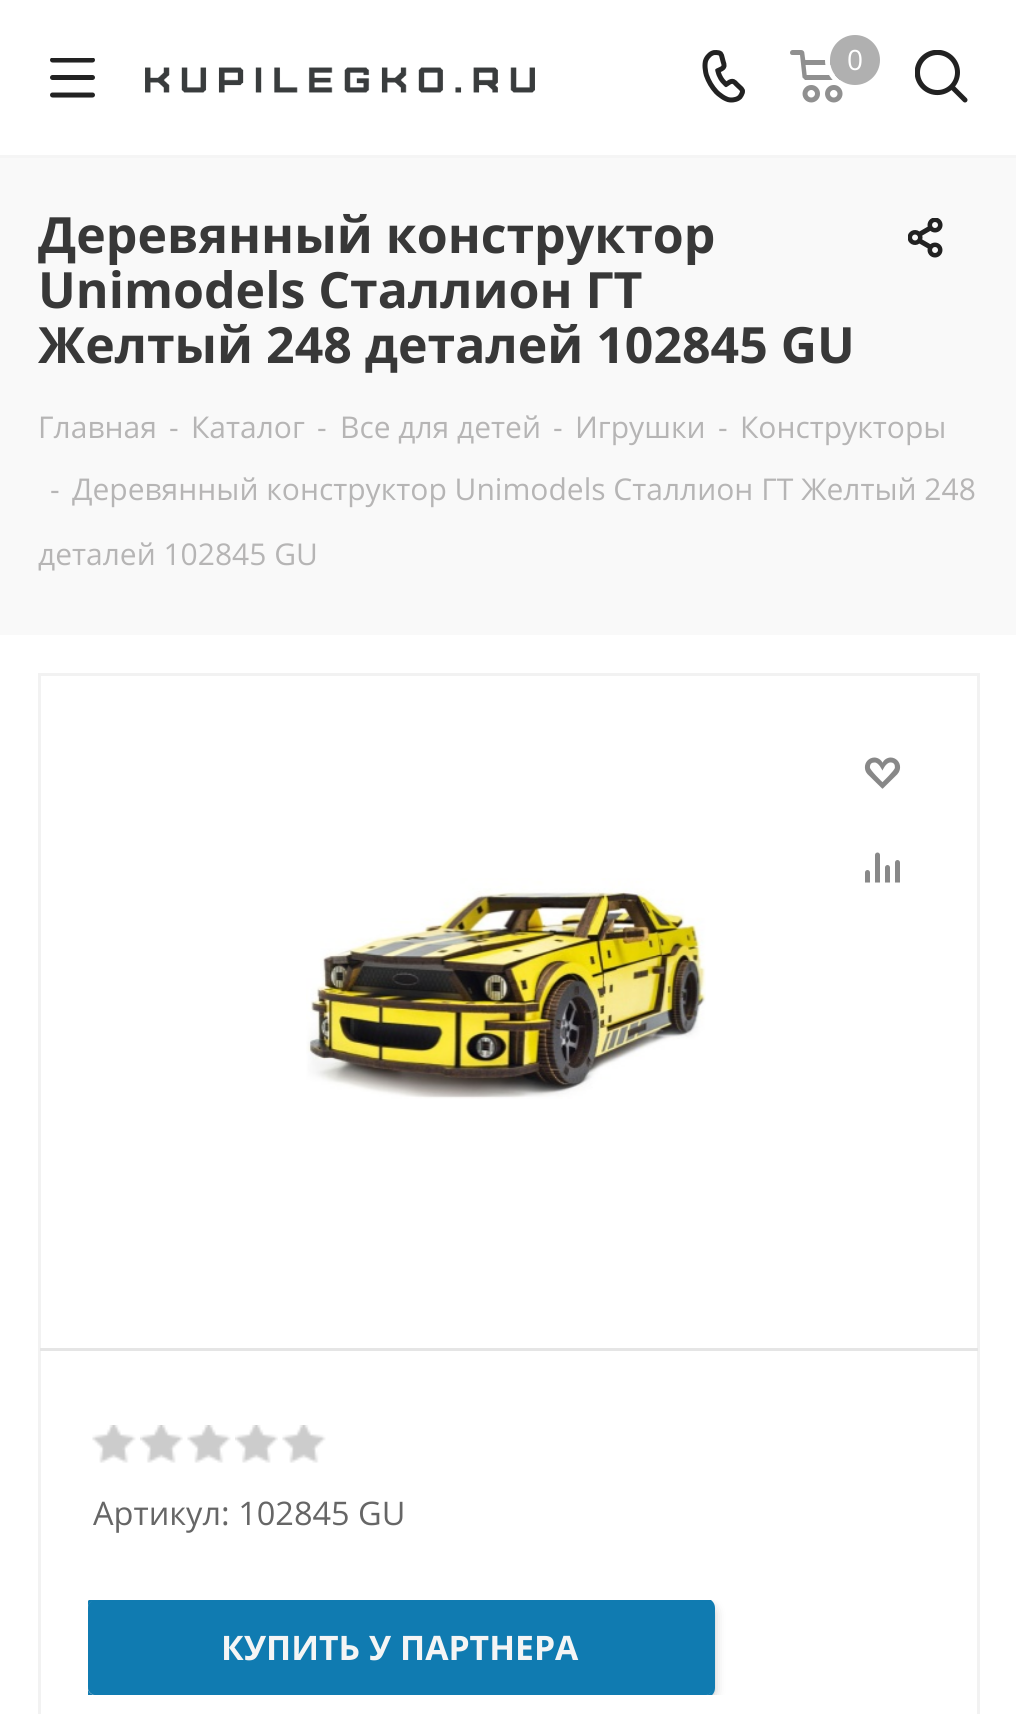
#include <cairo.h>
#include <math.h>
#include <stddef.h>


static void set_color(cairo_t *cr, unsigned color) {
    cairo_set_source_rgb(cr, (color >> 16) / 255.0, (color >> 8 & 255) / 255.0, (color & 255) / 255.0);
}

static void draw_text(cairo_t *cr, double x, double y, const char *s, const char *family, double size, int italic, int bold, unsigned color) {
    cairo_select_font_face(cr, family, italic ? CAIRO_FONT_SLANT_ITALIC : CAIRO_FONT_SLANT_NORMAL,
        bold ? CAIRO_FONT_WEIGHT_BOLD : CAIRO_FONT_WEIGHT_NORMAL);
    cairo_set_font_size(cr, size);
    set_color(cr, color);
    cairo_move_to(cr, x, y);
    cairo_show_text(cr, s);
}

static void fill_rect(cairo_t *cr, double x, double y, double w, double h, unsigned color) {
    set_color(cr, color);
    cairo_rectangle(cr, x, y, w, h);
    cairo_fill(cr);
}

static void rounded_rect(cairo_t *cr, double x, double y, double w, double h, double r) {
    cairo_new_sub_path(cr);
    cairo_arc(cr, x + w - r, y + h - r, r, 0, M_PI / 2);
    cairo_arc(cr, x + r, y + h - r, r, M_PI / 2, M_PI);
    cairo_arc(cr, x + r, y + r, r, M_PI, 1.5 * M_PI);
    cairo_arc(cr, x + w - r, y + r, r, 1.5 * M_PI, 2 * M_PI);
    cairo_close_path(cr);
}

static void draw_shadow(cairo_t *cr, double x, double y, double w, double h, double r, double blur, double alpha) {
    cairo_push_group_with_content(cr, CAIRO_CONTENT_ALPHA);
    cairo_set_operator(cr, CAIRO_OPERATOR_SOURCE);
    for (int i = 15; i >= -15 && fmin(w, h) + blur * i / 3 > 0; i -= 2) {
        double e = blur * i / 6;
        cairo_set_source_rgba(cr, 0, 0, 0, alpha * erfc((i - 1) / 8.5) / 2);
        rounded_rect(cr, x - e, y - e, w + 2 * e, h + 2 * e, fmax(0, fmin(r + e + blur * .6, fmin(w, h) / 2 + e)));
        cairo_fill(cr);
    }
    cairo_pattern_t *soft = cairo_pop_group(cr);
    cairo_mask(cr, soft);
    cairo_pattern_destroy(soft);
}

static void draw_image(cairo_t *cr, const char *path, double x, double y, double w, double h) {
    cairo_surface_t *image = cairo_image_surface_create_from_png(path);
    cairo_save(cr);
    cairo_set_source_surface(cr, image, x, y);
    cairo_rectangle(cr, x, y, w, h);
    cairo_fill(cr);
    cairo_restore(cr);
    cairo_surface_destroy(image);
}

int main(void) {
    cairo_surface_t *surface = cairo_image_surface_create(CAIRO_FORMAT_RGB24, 1016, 1714);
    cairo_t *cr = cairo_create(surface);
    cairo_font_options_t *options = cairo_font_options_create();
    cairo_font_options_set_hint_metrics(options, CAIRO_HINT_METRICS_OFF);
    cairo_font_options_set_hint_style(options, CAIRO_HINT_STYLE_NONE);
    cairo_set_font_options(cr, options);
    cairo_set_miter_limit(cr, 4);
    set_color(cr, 0xFFFFFF);
    cairo_paint(cr);
    fill_rect(cr, 0, 155, 1016, 3, 0xF5F5F5);
    draw_image(cr, "assets/img1.png", 50, 58, 45, 40);
    draw_image(cr, "assets/img2.png", 145, 67, 390, 26);
    draw_image(cr, "assets/img3.png", 702, 50, 43, 53);
    draw_image(cr, "assets/img4.png", 790, 50, 53, 53);
    cairo_arc(cr, 855, 60, 27.5, 0, 2 * M_PI);
    set_color(cr, 0xFFFFFF);
    cairo_set_line_width(cr, 5);
    cairo_stroke(cr);
    set_color(cr, 0xB0B0B0);
    cairo_arc(cr, 855, 60, 25, 0, 2 * M_PI);
    cairo_fill(cr);
    draw_text(cr, 847, 70, "0", "Open Sans", 28, 0, 0, 0xFFFFFF);
    draw_image(cr, "assets/img5.png", 915, 50, 53, 53);
    fill_rect(cr, 0, 158, 1016, 477, 0xF9F9F9);
    cairo_save(cr);
    cairo_rectangle(cr, 38, 208, 942, 202);
    cairo_clip(cr);
    draw_text(cr, 38, 253, "Деревянный конструктор", "Open Sans", 50, 0, 1, 0x383838);
    cairo_restore(cr);
    draw_text(cr, 38, 308, "Unimodels Сталлион ГТ", "Open Sans", 50, 0, 1, 0x383838);
    draw_text(cr, 38, 363, "Желтый 248 деталей 102845 GU", "Open Sans", 50, 0, 1, 0x383838);
    draw_image(cr, "assets/img6.png", 908, 218, 35, 40);
    draw_text(cr, 38, 438, "Главная", "Open Sans", 30, 0, 0, 0xB6B5B5);
    draw_text(cr, 169, 438, "-", "Open Sans", 30, 0, 0, 0xB6B5B5);
    draw_text(cr, 191, 438, "Каталог", "Open Sans", 30, 0, 0, 0xB6B5B5);
    draw_text(cr, 317, 438, "-", "Open Sans", 30, 0, 0, 0xB6B5B5);
    draw_text(cr, 340, 438, "Все для детей", "Open Sans", 30, 0, 0, 0xB6B5B5);
    draw_text(cr, 553, 438, "-", "Open Sans", 30, 0, 0, 0xB6B5B5);
    draw_text(cr, 575, 438, "Игрушки", "Open Sans", 30, 0, 0, 0xB6B5B5);
    draw_text(cr, 718, 438, "-", "Open Sans", 30, 0, 0, 0xB6B5B5);
    draw_text(cr, 740, 438, "Конструкторы", "Open Sans", 30, 0, 0, 0xB6B5B5);
    draw_text(cr, 50, 500, "-", "Open Sans", 30, 0, 0, 0xB6B5B5);
    draw_text(cr, 72, 500, "Деревянный конструктор Unimodels Сталлион ГТ Желтый 248", "Open Sans", 30, 0, 0, 0xB6B5B5);
    draw_text(cr, 38, 565, "деталей 102845 GU", "Open Sans", 30, 0, 0, 0xB6B5B5);
    cairo_rectangle(cr, 39.5, 674.5, 939, 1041);
    set_color(cr, 0xF2F2F2);
    cairo_set_line_width(cr, 3);
    cairo_stroke(cr);
    draw_image(cr, "assets/img7.png", 864, 757, 37, 32);
    draw_image(cr, "assets/img8.png", 865, 852, 35, 31);
    draw_image(cr, "assets/img9.png", 306, 878, 400, 221);
    fill_rect(cr, 40, 1348, 938, 3, 0xE5E5E5);
    draw_image(cr, "assets/img10.png", 92, 1425, 44, 38);
    draw_image(cr, "assets/img11.png", 140, 1425, 43, 38);
    draw_image(cr, "assets/img10.png", 187, 1425, 44, 38);
    draw_image(cr, "assets/img12.png", 235, 1425, 43, 38);
    draw_image(cr, "assets/img13.png", 282, 1425, 44, 38);
    draw_text(cr, 93, 1525, "Артикул: 102845 GU", "Open Sans", 32.5, 0, 0, 0x666666);
    cairo_save(cr);
    cairo_rectangle(cr, 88, 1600, 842, 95);
    cairo_clip(cr);
    set_color(cr, 0x000000);
    draw_shadow(cr, 88, 1605, 625, 95, 8, 6, 0.3);
    cairo_restore(cr);
    cairo_save(cr);
    cairo_rectangle(cr, 88, 1600, 842, 95);
    cairo_clip(cr);
    rounded_rect(cr, 86.5, 1599.5, 627, 97, 8.5);
    set_color(cr, 0x107BB1);
    cairo_stroke(cr);
    cairo_restore(cr);
    set_color(cr, 0x107BB1);
    rounded_rect(cr, 88, 1600, 625, 95, 8);
    cairo_fill(cr);
    cairo_new_path(cr);
    cairo_move_to(cr, 95, 1602);
    cairo_line_to(cr, 705, 1602);
    cairo_curve_to(cr, 709, 1602, 712, 1606, 712, 1610);
    cairo_line_to(cr, 712, 1691);
    cairo_curve_to(cr, 713, 1690, 713, 1688, 713, 1687);
    cairo_line_to(cr, 713, 1608);
    cairo_curve_to(cr, 713, 1604, 709, 1600, 705, 1600);
    cairo_line_to(cr, 96, 1600);
    cairo_curve_to(cr, 92, 1600, 88, 1604, 88, 1608);
    cairo_line_to(cr, 88, 1610);
    cairo_curve_to(cr, 88, 1606, 91, 1602, 95, 1602);
    cairo_close_path(cr);
    cairo_fill(cr);
    cairo_new_path(cr);
    cairo_move_to(cr, 88, 1685);
    cairo_line_to(cr, 88, 1687);
    cairo_curve_to(cr, 88, 1691, 92, 1695, 96, 1695);
    cairo_line_to(cr, 705, 1695);
    cairo_curve_to(cr, 709, 1695, 713, 1691, 713, 1687);
    cairo_line_to(cr, 713, 1608);
    cairo_curve_to(cr, 713, 1607, 713, 1605, 712, 1604);
    cairo_line_to(cr, 712, 1685);
    cairo_curve_to(cr, 712, 1689, 709, 1692, 705, 1692);
    cairo_line_to(cr, 95, 1692);
    cairo_curve_to(cr, 91, 1692, 88, 1689, 88, 1685);
    cairo_close_path(cr);
    cairo_fill(cr);
    draw_text(cr, 221, 1660, "КУПИТЬ У ПАРТНЕРА", "Open Sans", 33.75, 0, 1, 0xF5F5F5);
    cairo_surface_write_to_png(surface, "output.png");
    cairo_font_options_destroy(options);
    cairo_destroy(cr);
    cairo_surface_destroy(surface);
    return 0;
}
